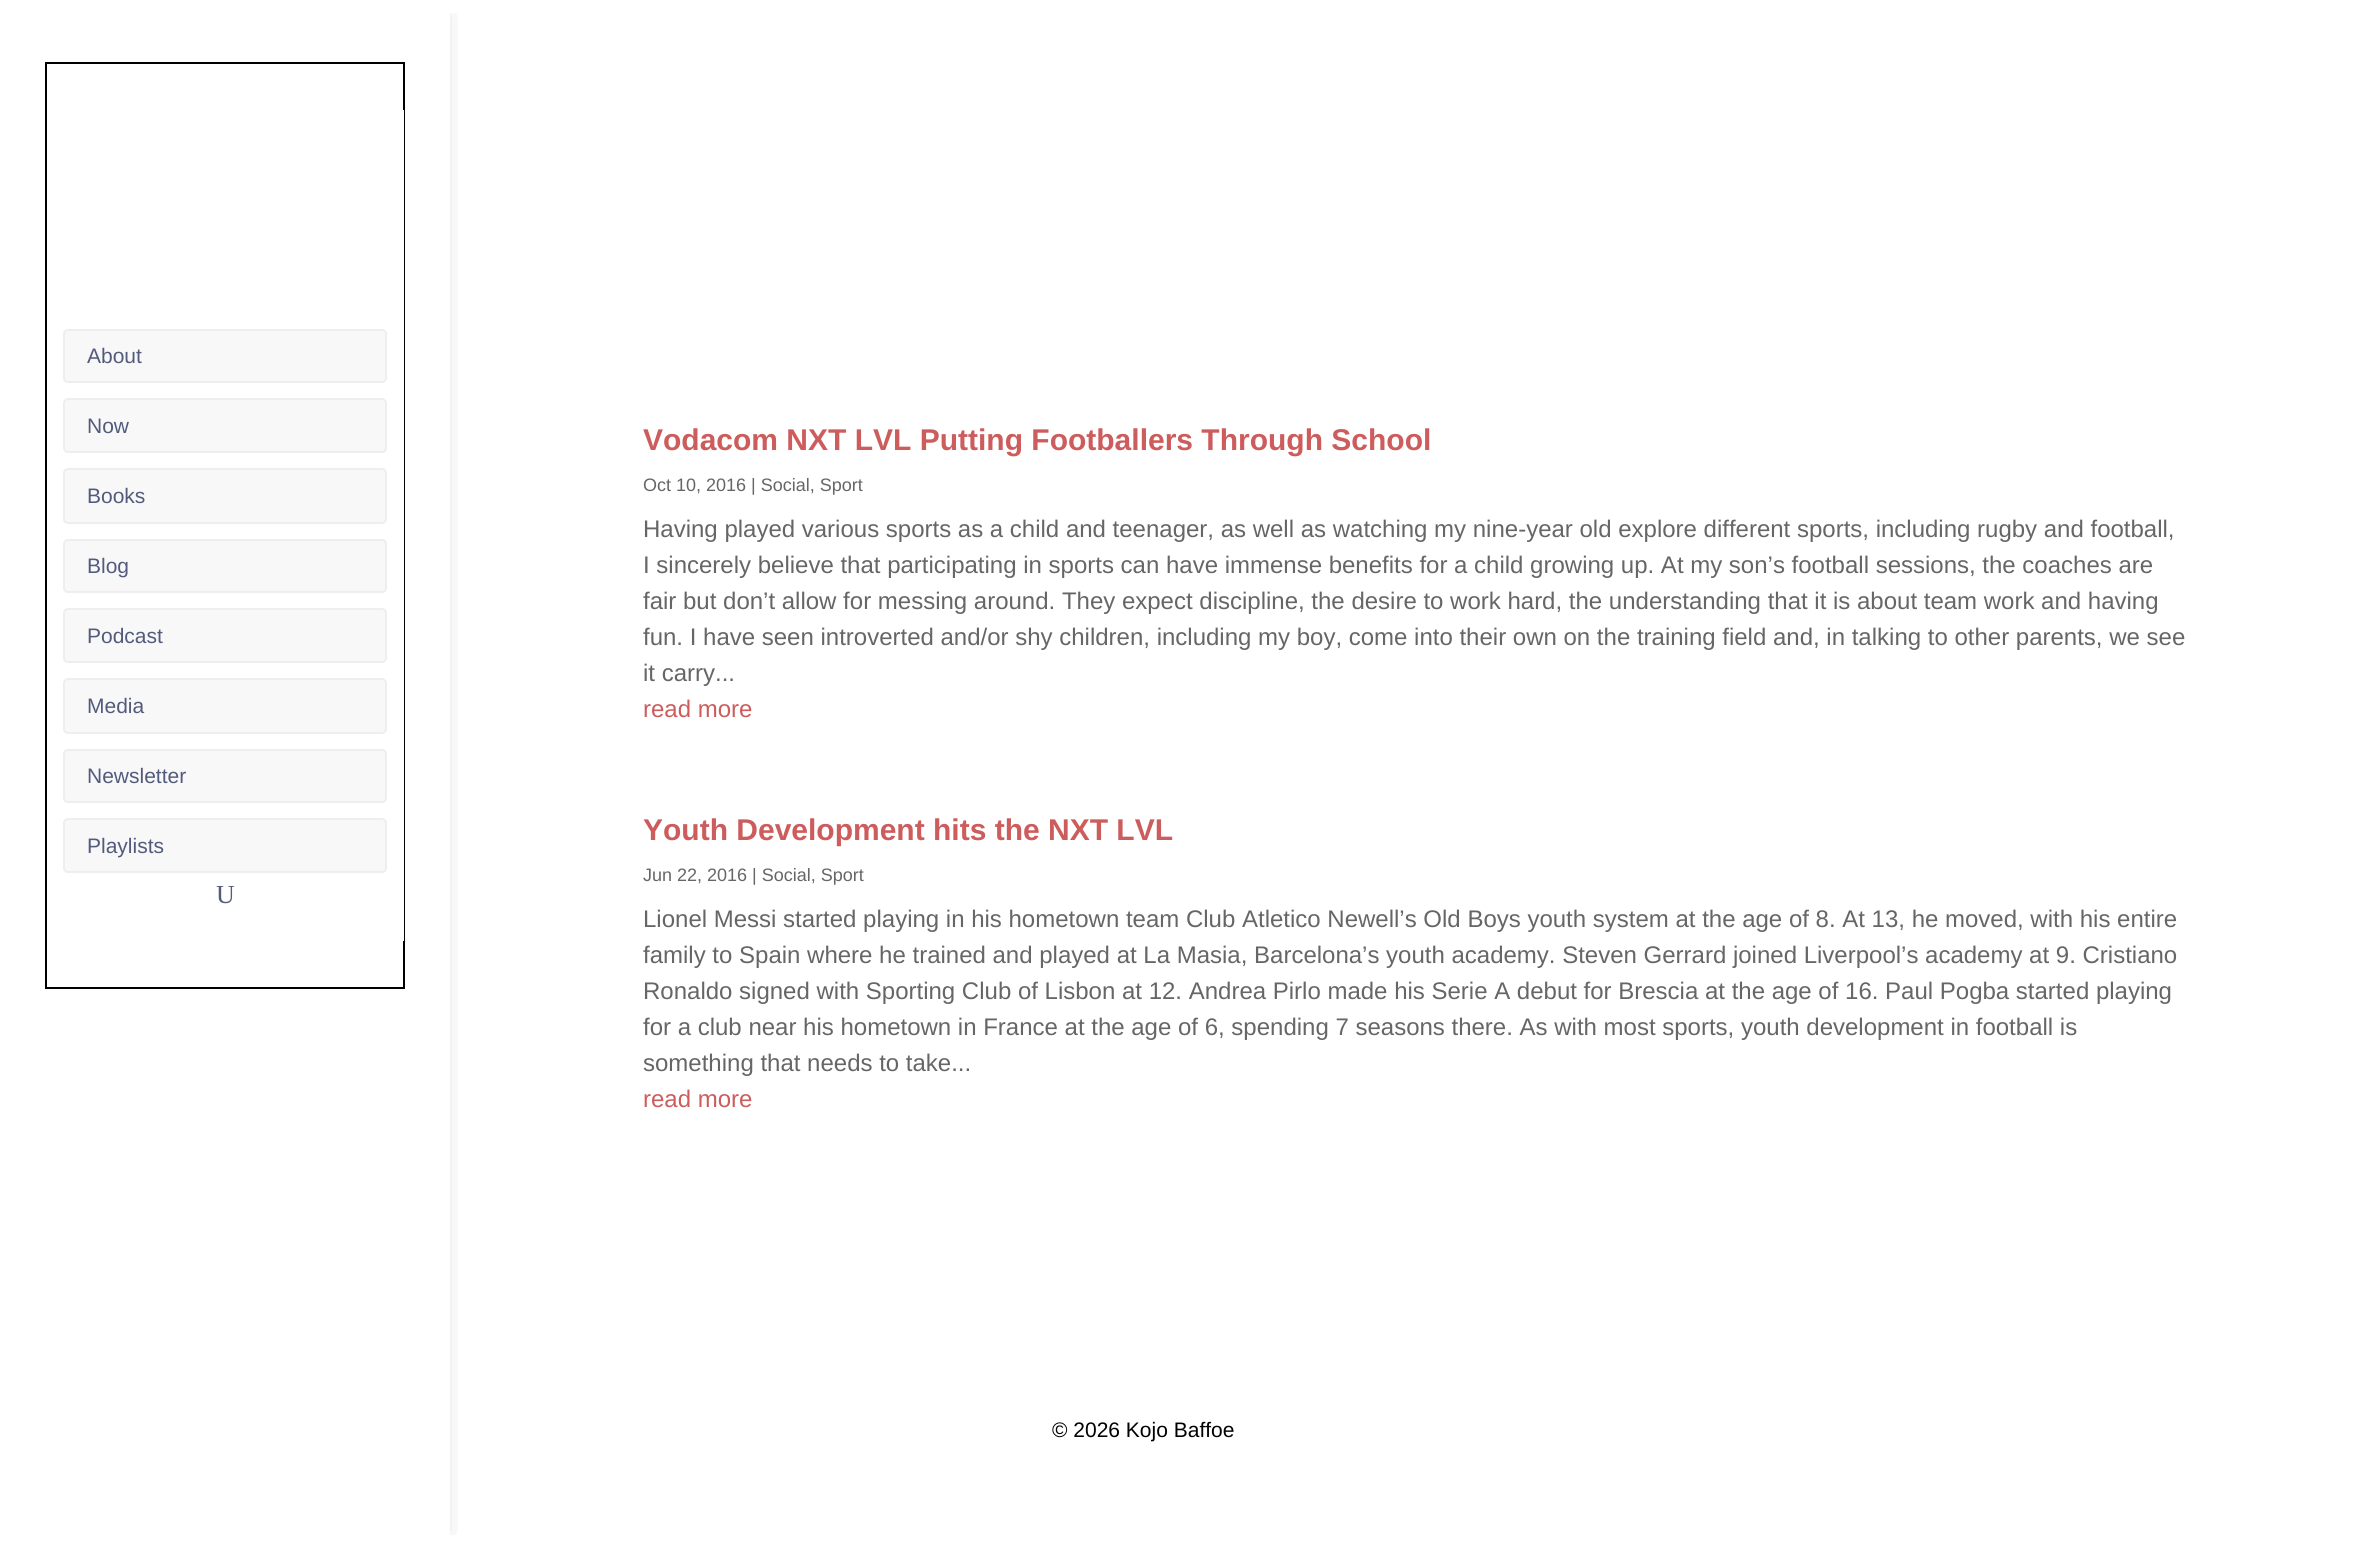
#include <cairo.h>
#include <math.h>
#include <stddef.h>


static void set_color(cairo_t *cr, unsigned color) {
    cairo_set_source_rgb(cr, (color >> 16) / 255.0, (color >> 8 & 255) / 255.0, (color & 255) / 255.0);
}

static void draw_text(cairo_t *cr, double x, double y, const char *s, const char *family, double size, int italic, int bold, unsigned color) {
    cairo_select_font_face(cr, family, italic ? CAIRO_FONT_SLANT_ITALIC : CAIRO_FONT_SLANT_NORMAL,
        bold ? CAIRO_FONT_WEIGHT_BOLD : CAIRO_FONT_WEIGHT_NORMAL);
    cairo_set_font_size(cr, size);
    set_color(cr, color);
    cairo_move_to(cr, x, y);
    cairo_show_text(cr, s);
}

static void fill_rect(cairo_t *cr, double x, double y, double w, double h, unsigned color) {
    set_color(cr, color);
    cairo_rectangle(cr, x, y, w, h);
    cairo_fill(cr);
}

static void rounded_rect(cairo_t *cr, double x, double y, double w, double h, double r) {
    cairo_new_sub_path(cr);
    cairo_arc(cr, x + w - r, y + h - r, r, 0, M_PI / 2);
    cairo_arc(cr, x + r, y + h - r, r, M_PI / 2, M_PI);
    cairo_arc(cr, x + r, y + r, r, M_PI, 1.5 * M_PI);
    cairo_arc(cr, x + w - r, y + r, r, 1.5 * M_PI, 2 * M_PI);
    cairo_close_path(cr);
}

static void draw_shadow(cairo_t *cr, double x, double y, double w, double h, double r, double blur, double alpha) {
    cairo_push_group_with_content(cr, CAIRO_CONTENT_ALPHA);
    cairo_set_operator(cr, CAIRO_OPERATOR_SOURCE);
    for (int i = 15; i >= -15 && fmin(w, h) + blur * i / 3 > 0; i -= 2) {
        double e = blur * i / 6;
        cairo_set_source_rgba(cr, 0, 0, 0, alpha * erfc((i - 1) / 8.5) / 2);
        rounded_rect(cr, x - e, y - e, w + 2 * e, h + 2 * e, fmax(0, fmin(r + e + blur * .6, fmin(w, h) / 2 + e)));
        cairo_fill(cr);
    }
    cairo_pattern_t *soft = cairo_pop_group(cr);
    cairo_mask(cr, soft);
    cairo_pattern_destroy(soft);
}

int main(void) {
    cairo_surface_t *surface = cairo_image_surface_create(CAIRO_FORMAT_RGB24, 2378, 1548);
    cairo_t *cr = cairo_create(surface);
    cairo_font_options_t *options = cairo_font_options_create();
    cairo_font_options_set_hint_metrics(options, CAIRO_HINT_METRICS_OFF);
    cairo_font_options_set_hint_style(options, CAIRO_HINT_STYLE_NONE);
    cairo_set_font_options(cr, options);
    cairo_set_miter_limit(cr, 4);
    set_color(cr, 0xFFFFFF);
    cairo_paint(cr);
    cairo_save(cr);
    cairo_rectangle(cr, 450, 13, 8, 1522);
    cairo_clip(cr);
    set_color(cr, 0x000000);
    draw_shadow(cr, 15, 15, 420, 1518, 0, 15, 0.3);
    cairo_restore(cr);
    cairo_rectangle(cr, 46, 63, 358, 925);
    set_color(cr, 0x000000);
    cairo_stroke(cr);
    fill_rect(cr, 403, 110, 1, 831, 0xFFFFFF);
    set_color(cr, 0xF8F8F8);
    rounded_rect(cr, 64, 330, 322, 52, 4);
    cairo_fill_preserve(cr);
    set_color(cr, 0xEEEEEE);
    cairo_stroke(cr);
    draw_text(cr, 87, 363, "About", "Liberation Sans", 21, 0, 0, 0x535B7C);
    set_color(cr, 0xF8F8F8);
    rounded_rect(cr, 64, 399, 322, 53, 4);
    cairo_fill_preserve(cr);
    set_color(cr, 0xEEEEEE);
    cairo_stroke(cr);
    draw_text(cr, 87, 433, "Now", "Liberation Sans", 21, 0, 0, 0x535B7C);
    set_color(cr, 0xF8F8F8);
    rounded_rect(cr, 64, 469, 322, 54, 4);
    cairo_fill_preserve(cr);
    set_color(cr, 0xEEEEEE);
    cairo_stroke(cr);
    draw_text(cr, 87, 503, "Books", "Liberation Sans", 21, 0, 0, 0x535B7C);
    set_color(cr, 0xF8F8F8);
    rounded_rect(cr, 64, 540, 322, 52, 4);
    cairo_fill_preserve(cr);
    set_color(cr, 0xEEEEEE);
    cairo_stroke(cr);
    draw_text(cr, 87, 573, "Blog", "Liberation Sans", 21, 0, 0, 0x535B7C);
    set_color(cr, 0xF8F8F8);
    rounded_rect(cr, 64, 609, 322, 53, 4);
    cairo_fill_preserve(cr);
    set_color(cr, 0xEEEEEE);
    cairo_stroke(cr);
    draw_text(cr, 87, 643, "Podcast", "Liberation Sans", 21, 0, 0, 0x535B7C);
    set_color(cr, 0xF8F8F8);
    rounded_rect(cr, 64, 679, 322, 54, 4);
    cairo_fill_preserve(cr);
    set_color(cr, 0xEEEEEE);
    cairo_stroke(cr);
    draw_text(cr, 87, 713, "Media", "Liberation Sans", 21, 0, 0, 0x535B7C);
    set_color(cr, 0xF8F8F8);
    rounded_rect(cr, 64, 750, 322, 52, 4);
    cairo_fill_preserve(cr);
    set_color(cr, 0xEEEEEE);
    cairo_stroke(cr);
    draw_text(cr, 87, 783, "Newsletter", "Liberation Sans", 21, 0, 0, 0x535B7C);
    set_color(cr, 0xF8F8F8);
    rounded_rect(cr, 64, 819, 322, 53, 4);
    cairo_fill_preserve(cr);
    set_color(cr, 0xEEEEEE);
    cairo_stroke(cr);
    draw_text(cr, 87, 853, "Playlists", "Liberation Sans", 21, 0, 0, 0x535B7C);
    draw_text(cr, 216, 903, "U", "Liberation Serif", 26, 0, 0, 0x535B7C);
    draw_text(cr, 643, 450, "Vodacom NXT LVL Putting Footballers Through School", "Liberation Sans", 30, 0, 1, 0xCD5C5C);
    draw_text(cr, 643, 491, "Oct 10, 2016 | Social, Sport", "Liberation Sans", 18, 0, 0, 0x666666);
    draw_text(cr, 643, 537, "Having played various sports as a child and teenager, as well as watching my nine-year old explore different sports, including rugby and football,", "Liberation Sans", 24, 0, 0, 0x666666);
    draw_text(cr, 643, 573, "I sincerely believe that participating in sports can have immense benefits for a child growing up. At my son’s football sessions, the coaches are", "Liberation Sans", 24, 0, 0, 0x666666);
    draw_text(cr, 643, 609, "fair but don’t allow for messing around. They expect discipline, the desire to work hard, the understanding that it is about team work and having", "Liberation Sans", 24, 0, 0, 0x666666);
    draw_text(cr, 643, 645, "fun. I have seen introverted and/or shy children, including my boy, come into their own on the training field and, in talking to other parents, we see", "Liberation Sans", 24, 0, 0, 0x666666);
    draw_text(cr, 643, 681, "it carry...", "Liberation Sans", 24, 0, 0, 0x666666);
    draw_text(cr, 643, 717, "read more", "Liberation Sans", 24, 0, 0, 0xCD5C5C);
    draw_text(cr, 643, 840, "Youth Development hits the NXT LVL", "Liberation Sans", 30, 0, 1, 0xCD5C5C);
    draw_text(cr, 643, 881, "Jun 22, 2016 | Social, Sport", "Liberation Sans", 18, 0, 0, 0x666666);
    draw_text(cr, 643, 927, "Lionel Messi started playing in his hometown team Club Atletico Newell’s Old Boys youth system at the age of 8. At 13, he moved, with his entire", "Liberation Sans", 24, 0, 0, 0x666666);
    draw_text(cr, 643, 963, "family to Spain where he trained and played at La Masia, Barcelona’s youth academy. Steven Gerrard joined Liverpool’s academy at 9. Cristiano", "Liberation Sans", 24, 0, 0, 0x666666);
    draw_text(cr, 643, 999, "Ronaldo signed with Sporting Club of Lisbon at 12. Andrea Pirlo made his Serie A debut for Brescia at the age of 16. Paul Pogba started playing", "Liberation Sans", 24, 0, 0, 0x666666);
    draw_text(cr, 643, 1035, "for a club near his hometown in France at the age of 6, spending 7 seasons there. As with most sports, youth development in football is", "Liberation Sans", 24, 0, 0, 0x666666);
    draw_text(cr, 643, 1071, "something that needs to take...", "Liberation Sans", 24, 0, 0, 0x666666);
    draw_text(cr, 643, 1107, "read more", "Liberation Sans", 24, 0, 0, 0xCD5C5C);
    draw_text(cr, 1052, 1437, "© 2026 Kojo Baffoe", "Liberation Sans", 21, 0, 0, 0x000000);
    cairo_surface_write_to_png(surface, "output.png");
    cairo_font_options_destroy(options);
    cairo_destroy(cr);
    cairo_surface_destroy(surface);
    return 0;
}
